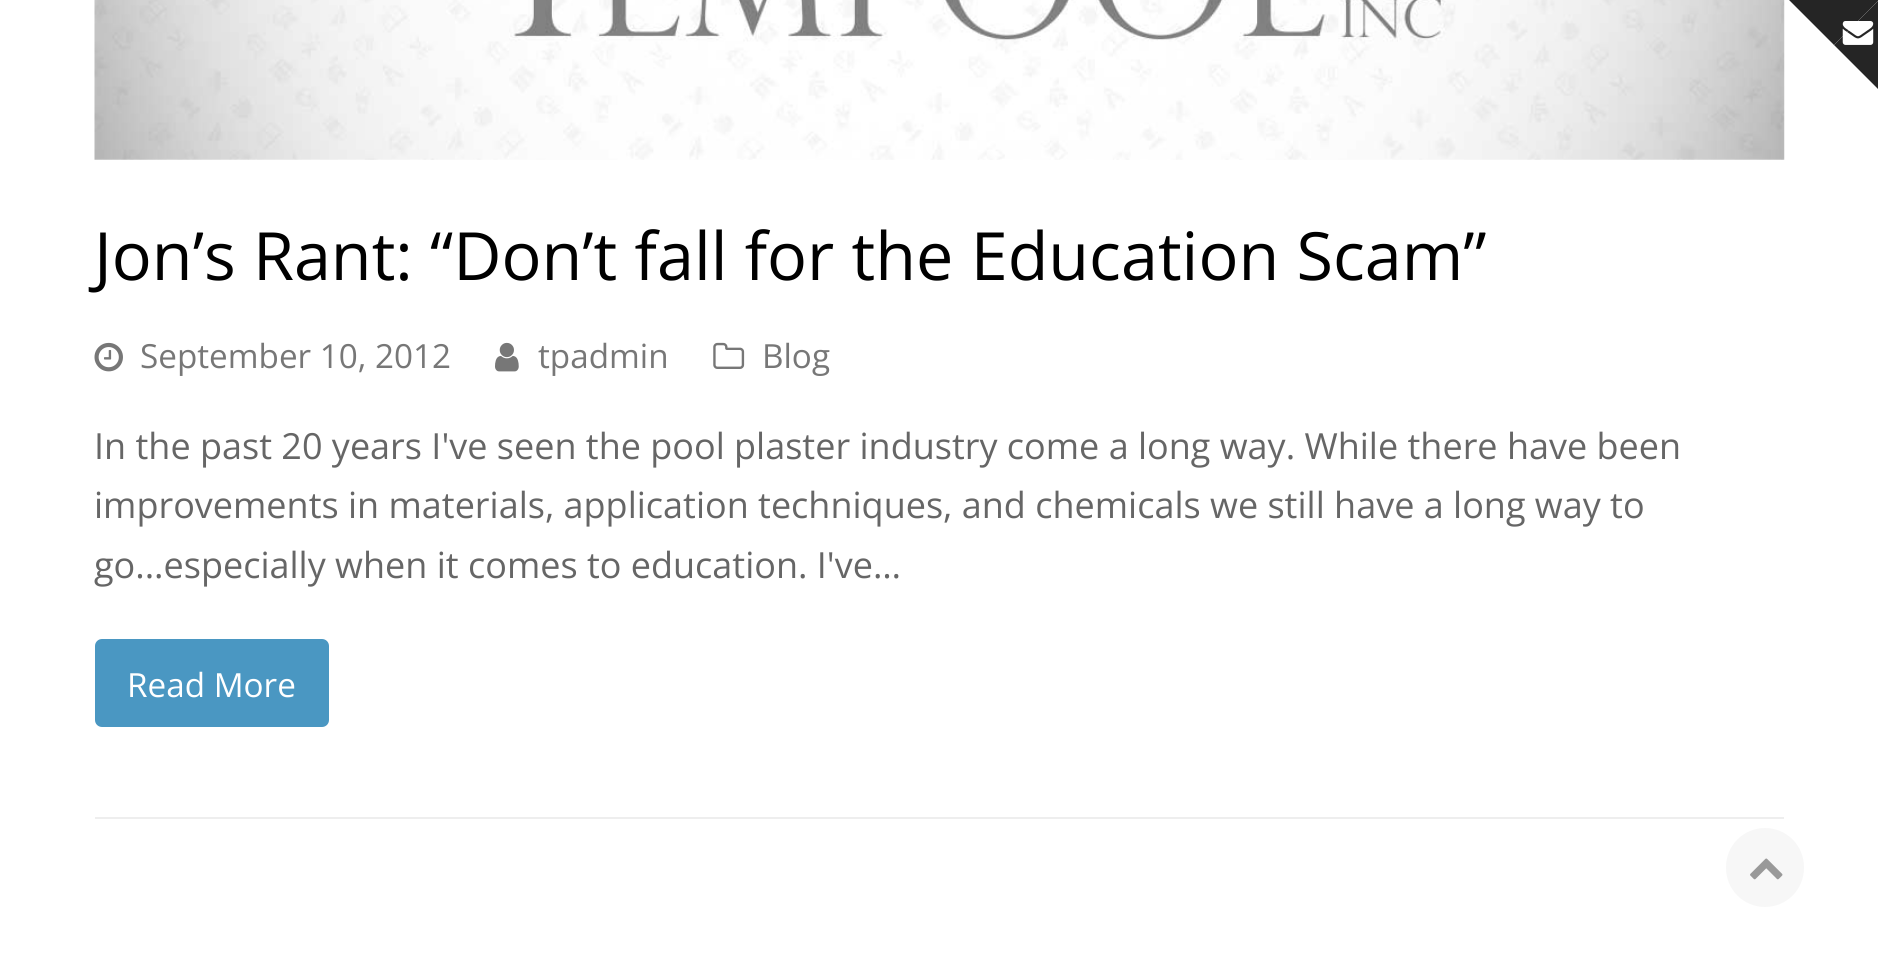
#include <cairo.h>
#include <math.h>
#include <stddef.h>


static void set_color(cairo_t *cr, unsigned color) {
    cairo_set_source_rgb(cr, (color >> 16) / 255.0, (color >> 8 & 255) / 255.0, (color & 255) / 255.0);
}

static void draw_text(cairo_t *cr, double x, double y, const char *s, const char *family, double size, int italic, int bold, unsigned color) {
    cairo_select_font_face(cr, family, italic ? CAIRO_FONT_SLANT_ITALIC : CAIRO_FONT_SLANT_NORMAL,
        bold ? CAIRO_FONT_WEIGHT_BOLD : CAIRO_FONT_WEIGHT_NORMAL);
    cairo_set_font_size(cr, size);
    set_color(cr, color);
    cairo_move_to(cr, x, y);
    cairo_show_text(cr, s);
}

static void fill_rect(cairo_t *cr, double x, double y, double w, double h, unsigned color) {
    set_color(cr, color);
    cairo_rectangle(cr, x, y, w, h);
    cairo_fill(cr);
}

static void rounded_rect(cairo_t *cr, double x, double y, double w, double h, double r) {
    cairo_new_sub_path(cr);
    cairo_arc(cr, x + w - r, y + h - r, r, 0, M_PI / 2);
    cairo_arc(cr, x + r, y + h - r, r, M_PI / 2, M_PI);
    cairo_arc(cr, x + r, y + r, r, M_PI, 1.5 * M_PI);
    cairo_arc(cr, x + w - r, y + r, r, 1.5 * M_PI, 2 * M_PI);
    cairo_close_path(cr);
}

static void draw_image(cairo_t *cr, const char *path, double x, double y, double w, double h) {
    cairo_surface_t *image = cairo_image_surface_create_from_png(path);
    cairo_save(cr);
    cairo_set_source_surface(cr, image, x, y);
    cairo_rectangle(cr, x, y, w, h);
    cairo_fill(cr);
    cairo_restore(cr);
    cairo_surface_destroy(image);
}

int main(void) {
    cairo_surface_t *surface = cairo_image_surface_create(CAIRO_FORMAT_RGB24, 1878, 980);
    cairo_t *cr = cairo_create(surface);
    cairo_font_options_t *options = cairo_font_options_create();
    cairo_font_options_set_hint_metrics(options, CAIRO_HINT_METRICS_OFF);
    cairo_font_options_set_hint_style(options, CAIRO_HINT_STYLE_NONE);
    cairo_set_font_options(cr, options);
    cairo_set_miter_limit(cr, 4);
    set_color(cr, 0xFFFFFF);
    cairo_paint(cr);
    set_color(cr, 0x252525);
    cairo_new_path(cr);
    cairo_move_to(cr, 1789, 0);
    cairo_line_to(cr, 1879, 0);
    cairo_line_to(cr, 1834, 45);
    cairo_close_path(cr);
    cairo_fill(cr);
    cairo_new_path(cr);
    cairo_move_to(cr, 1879, 0);
    cairo_line_to(cr, 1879, 90);
    cairo_line_to(cr, 1834, 45);
    cairo_close_path(cr);
    cairo_fill(cr);
    draw_image(cr, "assets/img1.png", 1842, 21, 32, 24);
    fill_rect(cr, 95, 817, 1689, 2, 0xEEEEEE);
    draw_image(cr, "assets/img2.png", 94, 0, 1691, 160);
    draw_text(cr, 94, 280, "Jon’s Rant: “Don’t fall for the Education Scam”", "Open Sans", 66.5, 0, 0, 0x000000);
    draw_image(cr, "assets/img3.png", 94, 342, 29, 30);
    draw_text(cr, 140, 368, "September 10, 2012", "Open Sans", 33.25, 0, 0, 0x777777);
    draw_image(cr, "assets/img4.png", 495, 342, 24, 30);
    draw_text(cr, 538, 368, "tpadmin", "Open Sans", 33.25, 0, 0, 0x777777);
    draw_image(cr, "assets/img5.png", 713, 342, 32, 27);
    draw_text(cr, 762, 368, "Blog", "Open Sans", 33.25, 0, 0, 0x777777);
    draw_text(cr, 94, 459, "In the past 20 years I've seen the pool plaster industry come a long way. While there have been", "Open Sans", 36, 0, 0, 0x666666);
    draw_text(cr, 94, 518, "improvements in materials, application techniques, and chemicals we still have a long way to", "Open Sans", 36, 0, 0, 0x666666);
    draw_text(cr, 94, 578, "go...especially when it comes to education. I've…", "Open Sans", 36, 0, 0, 0x666666);
    set_color(cr, 0x4A97C2);
    rounded_rect(cr, 95, 639, 234, 88, 7);
    cairo_fill(cr);
    draw_text(cr, 127, 697, "Read More", "Open Sans", 33.25, 0, 0, 0xFFFFFF);
    set_color(cr, 0xF7F7F7);
    rounded_rect(cr, 1722.5, 824.5, 85, 86, 42.5);
    cairo_fill_preserve(cr);
    set_color(cr, 0xFFFFFF);
    cairo_set_line_width(cr, 7);
    cairo_stroke(cr);
    draw_image(cr, "assets/img6.png", 1750, 858, 33, 22);
    cairo_surface_write_to_png(surface, "output.png");
    cairo_font_options_destroy(options);
    cairo_destroy(cr);
    cairo_surface_destroy(surface);
    return 0;
}
